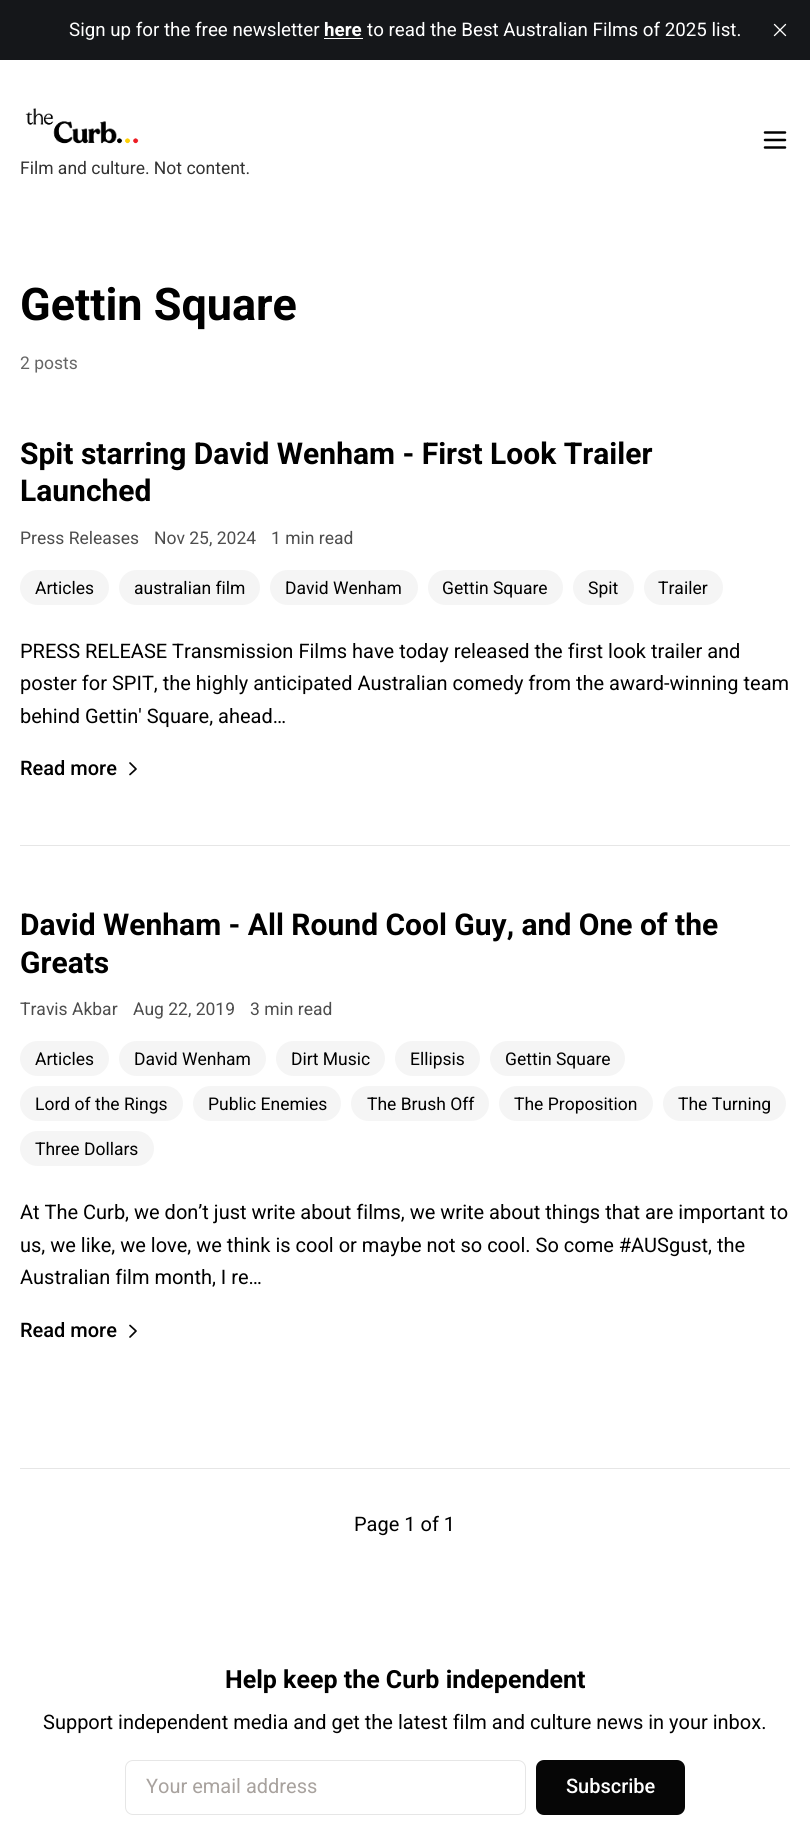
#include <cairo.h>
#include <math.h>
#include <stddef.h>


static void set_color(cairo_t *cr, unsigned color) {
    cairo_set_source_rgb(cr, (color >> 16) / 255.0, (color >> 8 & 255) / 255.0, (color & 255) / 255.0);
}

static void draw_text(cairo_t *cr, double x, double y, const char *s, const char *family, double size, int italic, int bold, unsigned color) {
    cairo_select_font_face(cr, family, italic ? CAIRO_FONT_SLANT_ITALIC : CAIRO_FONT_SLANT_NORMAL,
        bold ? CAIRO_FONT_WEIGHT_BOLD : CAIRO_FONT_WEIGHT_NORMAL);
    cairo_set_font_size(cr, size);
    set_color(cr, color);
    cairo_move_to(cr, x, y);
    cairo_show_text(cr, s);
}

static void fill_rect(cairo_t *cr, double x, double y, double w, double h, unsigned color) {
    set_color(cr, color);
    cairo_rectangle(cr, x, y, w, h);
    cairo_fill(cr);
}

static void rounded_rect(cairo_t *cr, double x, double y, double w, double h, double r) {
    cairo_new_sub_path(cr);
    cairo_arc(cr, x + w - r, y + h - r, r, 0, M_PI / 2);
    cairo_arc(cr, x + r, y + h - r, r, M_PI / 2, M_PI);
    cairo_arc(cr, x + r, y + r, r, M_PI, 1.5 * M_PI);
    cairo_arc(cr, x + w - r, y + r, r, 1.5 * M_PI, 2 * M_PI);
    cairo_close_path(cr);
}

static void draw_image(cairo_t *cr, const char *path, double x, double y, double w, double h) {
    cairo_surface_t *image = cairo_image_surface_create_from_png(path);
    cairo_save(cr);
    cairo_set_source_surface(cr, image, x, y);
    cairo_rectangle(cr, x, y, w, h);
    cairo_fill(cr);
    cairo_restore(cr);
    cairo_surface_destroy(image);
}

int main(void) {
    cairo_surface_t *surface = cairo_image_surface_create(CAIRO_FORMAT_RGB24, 810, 1839);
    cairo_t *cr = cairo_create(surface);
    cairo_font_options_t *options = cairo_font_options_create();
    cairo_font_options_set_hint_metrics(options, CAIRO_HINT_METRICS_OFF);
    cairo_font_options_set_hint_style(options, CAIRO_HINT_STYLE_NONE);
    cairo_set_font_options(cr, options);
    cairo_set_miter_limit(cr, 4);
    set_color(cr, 0xFFFFFF);
    cairo_paint(cr);
    fill_rect(cr, 0, 0, 810, 60, 0x15171A);
    draw_text(cr, 69, 36, "Sign up for the free newsletter", "Roboto", 18.75, 0, 0, 0xFFFFFF);
    draw_text(cr, 324, 36, "here", "Roboto", 18.75, 0, 1, 0xFFFFFF);
    fill_rect(cr, 324, 38, 39, 1, 0xFFFFFF);
    draw_text(cr, 367, 36, "to read the Best Australian Films of 2025 list.", "Roboto", 18.75, 0, 0, 0xFFFFFF);
    draw_image(cr, "assets/img1.png", 773, 23, 14, 14);
    cairo_new_path(cr);
    cairo_move_to(cr, 765, 132.5);
    cairo_line_to(cr, 785, 132.5);
    cairo_move_to(cr, 765, 140);
    cairo_line_to(cr, 785, 140);
    cairo_move_to(cr, 765, 147.5);
    cairo_line_to(cr, 785, 147.5);
    set_color(cr, 0x000000);
    cairo_set_line_width(cr, 2.5);
    cairo_set_line_cap(cr, CAIRO_LINE_CAP_ROUND);
    cairo_set_line_join(cr, CAIRO_LINE_JOIN_ROUND);
    cairo_stroke(cr);
    draw_image(cr, "assets/img2.png", 25, 108, 114, 36);
    draw_text(cr, 20, 174, "Film and culture. Not content.", "Roboto", 17.5, 0, 0, 0x333333);
    draw_text(cr, 20, 320, "Gettin Square", "Roboto", 45, 0, 1, 0x000000);
    draw_text(cr, 20, 369, "2 posts", "Roboto", 17.5, 0, 0, 0x666666);
    fill_rect(cr, 20, 845, 770, 1, 0xE6E6E6);
    draw_text(cr, 20, 464, "Spit starring David Wenham - First Look Trailer", "Roboto", 30, 0, 1, 0x000000);
    draw_text(cr, 20, 501, "Launched", "Roboto", 30, 0, 1, 0x000000);
    draw_text(cr, 20, 544, "Press Releases", "Roboto", 17.5, 0, 0, 0x4D4D4D);
    draw_text(cr, 154, 544, "Nov 25, 2024", "Roboto", 17.5, 0, 0, 0x4D4D4D);
    draw_text(cr, 271, 544, "1 min read", "Roboto", 17.5, 0, 0, 0x4D4D4D);
    set_color(cr, 0xF5F5F5);
    rounded_rect(cr, 20, 570, 89, 35, 17.5);
    cairo_fill(cr);
    draw_text(cr, 35, 594, "Articles", "Roboto", 17.5, 0, 0, 0x000000);
    set_color(cr, 0xF5F5F5);
    rounded_rect(cr, 119, 570, 141, 35, 17.5);
    cairo_fill(cr);
    draw_text(cr, 134, 594, "australian film", "Roboto", 17.5, 0, 0, 0x000000);
    set_color(cr, 0xF5F5F5);
    rounded_rect(cr, 270, 570, 148, 35, 17.5);
    cairo_fill(cr);
    draw_text(cr, 285, 594, "David Wenham", "Roboto", 17.5, 0, 0, 0x000000);
    set_color(cr, 0xF5F5F5);
    rounded_rect(cr, 428, 570, 135, 35, 17.5);
    cairo_fill(cr);
    draw_text(cr, 442, 594, "Gettin Square", "Roboto", 17.5, 0, 0, 0x000000);
    set_color(cr, 0xF5F5F5);
    rounded_rect(cr, 573, 570, 61, 35, 17.5);
    cairo_fill(cr);
    draw_text(cr, 588, 594, "Spit", "Roboto", 17.5, 0, 0, 0x000000);
    set_color(cr, 0xF5F5F5);
    rounded_rect(cr, 644, 570, 79, 35, 17.5);
    cairo_fill(cr);
    draw_text(cr, 658, 594, "Trailer", "Roboto", 17.5, 0, 0, 0x000000);
    draw_text(cr, 20, 658, "PRESS RELEASE Transmission Films have today released the first look trailer and", "Roboto", 20, 0, 0, 0x000000);
    draw_text(cr, 20, 690, "poster for SPIT, the highly anticipated Australian comedy from the award-winning team", "Roboto", 20, 0, 0, 0x000000);
    draw_text(cr, 20, 723, "behind Gettin' Square, ahead…", "Roboto", 20, 0, 0, 0x000000);
    draw_text(cr, 20, 775, "Read more", "Roboto Medium", 20, 0, 0, 0x000000);
    cairo_new_path(cr);
    cairo_move_to(cr, 130, 763);
    cairo_line_to(cr, 136, 769);
    cairo_line_to(cr, 130, 774.5);
    set_color(cr, 0x050505);
    cairo_set_line_width(cr, 1.7);
    cairo_stroke(cr);
    draw_text(cr, 20, 935, "David Wenham - All Round Cool Guy, and One of the", "Roboto", 30, 0, 1, 0x000000);
    draw_text(cr, 20, 973, "Greats", "Roboto", 30, 0, 1, 0x000000);
    draw_text(cr, 20, 1015, "Travis Akbar", "Roboto", 17.5, 0, 0, 0x4D4D4D);
    draw_text(cr, 133, 1015, "Aug 22, 2019", "Roboto", 17.5, 0, 0, 0x4D4D4D);
    draw_text(cr, 250, 1015, "3 min read", "Roboto", 17.5, 0, 0, 0x4D4D4D);
    set_color(cr, 0xF5F5F5);
    rounded_rect(cr, 20, 1041, 89, 35, 17.5);
    cairo_fill(cr);
    draw_text(cr, 35, 1065, "Articles", "Roboto", 17.5, 0, 0, 0x000000);
    set_color(cr, 0xF5F5F5);
    rounded_rect(cr, 119, 1041, 147, 35, 17.5);
    cairo_fill(cr);
    draw_text(cr, 134, 1065, "David Wenham", "Roboto", 17.5, 0, 0, 0x000000);
    set_color(cr, 0xF5F5F5);
    rounded_rect(cr, 276, 1041, 109, 35, 17.5);
    cairo_fill(cr);
    draw_text(cr, 291, 1065, "Dirt Music", "Roboto", 17.5, 0, 0, 0x000000);
    set_color(cr, 0xF5F5F5);
    rounded_rect(cr, 395, 1041, 85, 35, 17.5);
    cairo_fill(cr);
    draw_text(cr, 410, 1065, "Ellipsis", "Roboto", 17.5, 0, 0, 0x000000);
    set_color(cr, 0xF5F5F5);
    rounded_rect(cr, 490, 1041, 135, 35, 17.5);
    cairo_fill(cr);
    draw_text(cr, 505, 1065, "Gettin Square", "Roboto", 17.5, 0, 0, 0x000000);
    set_color(cr, 0xF5F5F5);
    rounded_rect(cr, 20, 1086, 163, 35, 17.5);
    cairo_fill(cr);
    draw_text(cr, 35, 1110, "Lord of the Rings", "Roboto", 17.5, 0, 0, 0x000000);
    set_color(cr, 0xF5F5F5);
    rounded_rect(cr, 193, 1086, 148, 35, 17.5);
    cairo_fill(cr);
    draw_text(cr, 208, 1110, "Public Enemies", "Roboto", 17.5, 0, 0, 0x000000);
    set_color(cr, 0xF5F5F5);
    rounded_rect(cr, 351, 1086, 138, 35, 17.5);
    cairo_fill(cr);
    draw_text(cr, 367, 1110, "The Brush Off", "Roboto", 17.5, 0, 0, 0x000000);
    set_color(cr, 0xF5F5F5);
    rounded_rect(cr, 499, 1086, 154, 35, 17.5);
    cairo_fill(cr);
    draw_text(cr, 514, 1110, "The Proposition", "Roboto", 17.5, 0, 0, 0x000000);
    set_color(cr, 0xF5F5F5);
    rounded_rect(cr, 663, 1086, 123, 35, 17.5);
    cairo_fill(cr);
    draw_text(cr, 678, 1110, "The Turning", "Roboto", 17.5, 0, 0, 0x000000);
    set_color(cr, 0xF5F5F5);
    rounded_rect(cr, 20, 1131, 134, 35, 17.5);
    cairo_fill(cr);
    draw_text(cr, 35, 1155, "Three Dollars", "Roboto", 17.5, 0, 0, 0x000000);
    draw_text(cr, 20, 1219, "At The Curb, we don’t just write about films, we write about things that are important to", "Roboto", 20, 0, 0, 0x000000);
    draw_text(cr, 20, 1252, "us, we like, we love, we think is cool or maybe not so cool. So come #AUSgust, the", "Roboto", 20, 0, 0, 0x000000);
    draw_text(cr, 20, 1284, "Australian film month, I re…", "Roboto", 20, 0, 0, 0x000000);
    draw_text(cr, 20, 1337, "Read more", "Roboto Medium", 20, 0, 0, 0x000000);
    cairo_new_path(cr);
    cairo_move_to(cr, 130, 1325.5);
    cairo_line_to(cr, 136, 1331);
    cairo_line_to(cr, 130, 1337);
    set_color(cr, 0x050505);
    cairo_stroke(cr);
    fill_rect(cr, 20, 1468, 770, 1, 0xE6E6E6);
    draw_text(cr, 354, 1531, "Page 1 of 1", "Roboto", 20, 0, 0, 0x000000);
    draw_text(cr, 225, 1688, "Help keep the Curb independent", "Roboto", 25, 0, 1, 0x000000);
    draw_text(cr, 43, 1729, "Support independent media and get the latest film and culture news in your inbox.", "Roboto", 20, 0, 0, 0x000000);
    rounded_rect(cr, 125.5, 1760.5, 400, 54, 7.5);
    set_color(cr, 0xE6E6E6);
    cairo_set_line_width(cr, 1);
    cairo_set_line_cap(cr, CAIRO_LINE_CAP_BUTT);
    cairo_set_line_join(cr, CAIRO_LINE_JOIN_MITER);
    cairo_stroke(cr);
    draw_text(cr, 146, 1793, "Your email address", "Roboto", 20, 0, 0, 0xA8A29E);
    set_color(cr, 0x060606);
    rounded_rect(cr, 536, 1760, 149, 55, 8);
    cairo_fill(cr);
    draw_text(cr, 566, 1793, "Subscribe", "Roboto Medium", 20, 0, 0, 0xFFFFFF);
    cairo_surface_write_to_png(surface, "output.png");
    cairo_font_options_destroy(options);
    cairo_destroy(cr);
    cairo_surface_destroy(surface);
    return 0;
}
